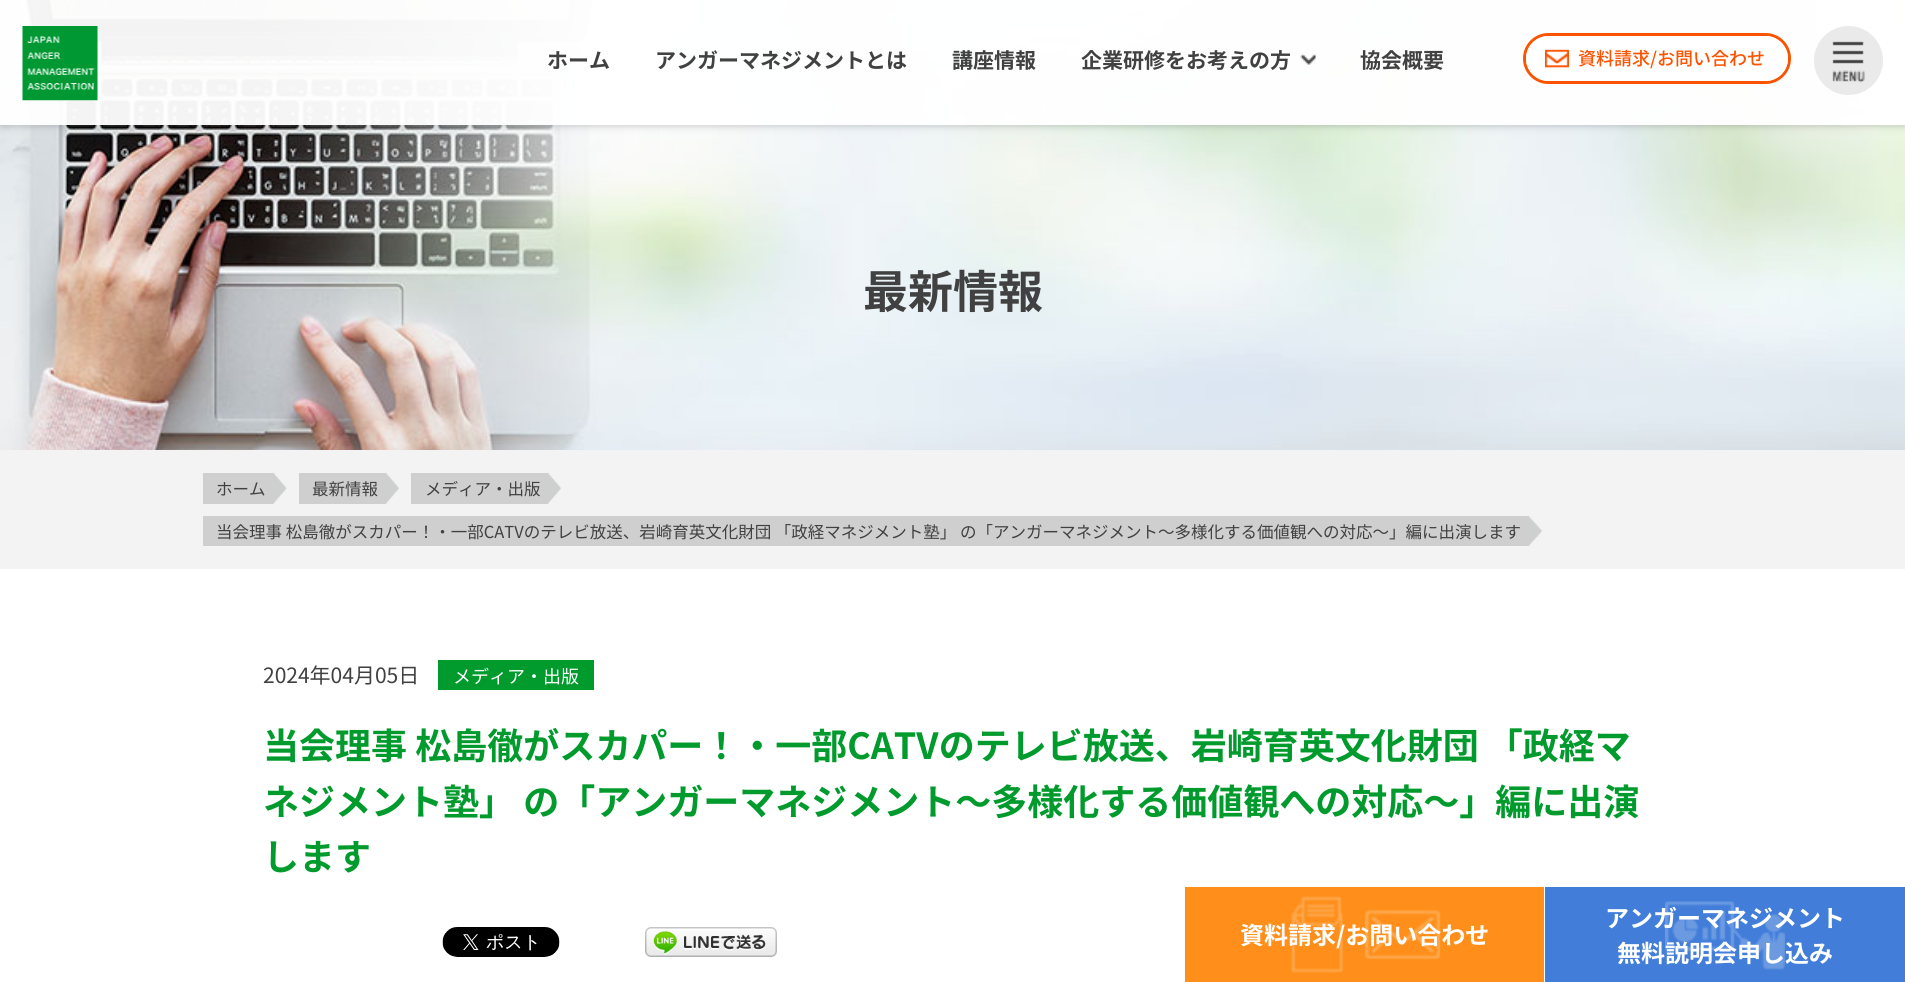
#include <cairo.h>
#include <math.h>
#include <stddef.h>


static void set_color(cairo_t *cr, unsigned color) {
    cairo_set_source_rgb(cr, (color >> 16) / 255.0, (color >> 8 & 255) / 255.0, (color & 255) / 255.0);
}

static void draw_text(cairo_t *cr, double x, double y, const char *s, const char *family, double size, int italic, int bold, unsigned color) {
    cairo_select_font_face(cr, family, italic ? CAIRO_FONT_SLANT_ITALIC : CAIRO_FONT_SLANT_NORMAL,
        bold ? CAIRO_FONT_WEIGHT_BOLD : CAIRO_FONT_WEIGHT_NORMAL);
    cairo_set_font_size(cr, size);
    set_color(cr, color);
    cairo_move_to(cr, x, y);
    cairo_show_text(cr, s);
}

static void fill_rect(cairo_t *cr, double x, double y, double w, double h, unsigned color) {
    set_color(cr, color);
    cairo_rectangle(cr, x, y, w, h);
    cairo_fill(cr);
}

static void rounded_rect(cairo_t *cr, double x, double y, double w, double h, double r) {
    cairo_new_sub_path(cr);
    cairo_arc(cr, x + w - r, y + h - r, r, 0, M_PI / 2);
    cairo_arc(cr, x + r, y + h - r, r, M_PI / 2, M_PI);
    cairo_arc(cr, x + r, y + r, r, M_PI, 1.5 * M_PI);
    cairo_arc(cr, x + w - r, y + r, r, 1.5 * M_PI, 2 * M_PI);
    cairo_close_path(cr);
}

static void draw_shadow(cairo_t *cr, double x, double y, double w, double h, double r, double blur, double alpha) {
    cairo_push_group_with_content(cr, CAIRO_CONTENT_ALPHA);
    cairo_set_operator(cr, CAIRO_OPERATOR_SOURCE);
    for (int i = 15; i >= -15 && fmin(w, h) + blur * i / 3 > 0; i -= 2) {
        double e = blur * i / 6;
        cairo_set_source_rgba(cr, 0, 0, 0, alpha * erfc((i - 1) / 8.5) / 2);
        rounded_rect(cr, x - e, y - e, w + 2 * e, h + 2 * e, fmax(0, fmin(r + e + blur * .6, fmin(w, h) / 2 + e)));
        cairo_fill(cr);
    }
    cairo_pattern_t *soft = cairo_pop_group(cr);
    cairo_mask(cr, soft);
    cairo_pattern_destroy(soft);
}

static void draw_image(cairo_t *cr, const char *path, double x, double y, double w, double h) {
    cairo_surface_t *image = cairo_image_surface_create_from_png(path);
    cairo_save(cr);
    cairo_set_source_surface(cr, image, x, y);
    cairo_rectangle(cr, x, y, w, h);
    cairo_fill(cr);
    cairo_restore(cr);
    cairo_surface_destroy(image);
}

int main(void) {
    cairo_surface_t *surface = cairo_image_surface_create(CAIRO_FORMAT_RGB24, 1905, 982);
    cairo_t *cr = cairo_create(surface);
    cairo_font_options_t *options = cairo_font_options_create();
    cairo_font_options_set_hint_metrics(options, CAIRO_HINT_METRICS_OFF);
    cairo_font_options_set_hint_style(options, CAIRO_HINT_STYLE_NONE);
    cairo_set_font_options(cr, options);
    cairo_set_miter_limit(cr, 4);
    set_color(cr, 0xFFFFFF);
    cairo_paint(cr);
    draw_image(cr, "assets/img5.png", 0, 0, 1905, 450);
    cairo_save(cr);
    cairo_set_fill_rule(cr, CAIRO_FILL_RULE_EVEN_ODD);
    cairo_new_path(cr);
    cairo_move_to(cr, 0, 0);
    cairo_line_to(cr, 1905, 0);
    cairo_line_to(cr, 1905, 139);
    cairo_line_to(cr, 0, 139);
    cairo_close_path(cr);
    cairo_move_to(cr, 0, 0);
    cairo_line_to(cr, 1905, 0);
    cairo_line_to(cr, 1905, 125);
    cairo_line_to(cr, 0, 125);
    cairo_close_path(cr);
    cairo_clip(cr);
    set_color(cr, 0x000000);
    draw_shadow(cr, 0, 2, 1905, 124, 0, 4, 0.2);
    cairo_restore(cr);
    cairo_set_source_rgba(cr, 1, 1, 1, 0.95);
    cairo_rectangle(cr, 0, 0, 1905, 125);
    cairo_fill(cr);
    draw_image(cr, "assets/img1.png", 22, 26, 76, 75);
    draw_text(cr, 547, 68, "ホーム", "Noto Sans JP", 21, 0, 1, 0x414141);
    draw_text(cr, 655, 68, "アンガーマネジメントとは", "Noto Sans JP", 21, 0, 1, 0x414141);
    draw_text(cr, 952, 68, "講座情報", "Noto Sans JP", 21, 0, 1, 0x414141);
    draw_image(cr, "assets/img2.png", 1300, 54, 16, 11);
    draw_text(cr, 1081, 68, "企業研修をお考えの方", "Noto Sans JP", 21, 0, 1, 0x414141);
    draw_text(cr, 1360, 68, "協会概要", "Noto Sans JP", 21, 0, 1, 0x414141);
    rounded_rect(cr, 1524.5, 34.5, 265, 48, 24);
    set_color(cr, 0xFC5300);
    cairo_set_line_width(cr, 3);
    cairo_stroke(cr);
    set_color(cr, 0xFFFFFF);
    rounded_rect(cr, 1526, 36, 262, 45, 22.5);
    cairo_fill(cr);
    draw_image(cr, "assets/img3.png", 1545, 49, 24, 19);
    draw_text(cr, 1578, 65, "資料請求/お問い合わせ", "Noto Sans JP Medium", 18, 0, 0, 0xFC5300);
    set_color(cr, 0xEAEAEA);
    cairo_new_path(cr);
    cairo_arc(cr, 1848.5, 60.5, 34.5, 0, 2 * M_PI);
    cairo_fill(cr);
    draw_image(cr, "assets/img4.png", 1832, 41, 33, 42);
    draw_text(cr, 863, 308, "最新情報", "Noto Sans JP", 45, 0, 1, 0x414141);
    fill_rect(cr, 0, 450, 1905, 119, 0xF3F3F3);
    draw_image(cr, "assets/img6.png", 273, 472, 14, 32);
    fill_rect(cr, 203, 473, 70, 31, 0xCFCFCF);
    draw_text(cr, 216, 495, "ホーム", "Noto Sans JP", 16.5, 0, 0, 0x414141);
    draw_image(cr, "assets/img7.png", 385, 472, 14, 32);
    fill_rect(cr, 299, 473, 87, 31, 0xCFCFCF);
    draw_text(cr, 312, 495, "最新情報", "Noto Sans JP", 16.5, 0, 0, 0x414141);
    draw_image(cr, "assets/img8.png", 547, 472, 14, 32);
    fill_rect(cr, 411, 473, 137, 31, 0xCFCFCF);
    draw_text(cr, 425, 495, "メディア・出版", "Noto Sans JP", 16.5, 0, 0, 0x414141);
    draw_image(cr, "assets/img9.png", 1529, 516, 13, 30);
    fill_rect(cr, 203, 516, 1326, 30, 0xCFCFCF);
    draw_text(cr, 216, 538, "当会理事 松島徹がスカパー！・一部CATVのテレビ放送、岩崎育英文化財団 「政経マネジメント塾」 の「アンガーマネジメント～多様化する価値観への対応～」編に出演します", "Noto Sans JP", 16.5, 0, 0, 0x414141);
    draw_text(cr, 263, 683, "2024年04月05日", "Noto Sans JP", 21, 0, 0, 0x414141);
    fill_rect(cr, 438, 660, 156, 30, 0x009A2D);
    draw_text(cr, 453, 683, "メディア・出版", "Noto Sans JP", 18, 0, 0, 0xFFFFFF);
    draw_text(cr, 263, 759, "当会理事 松島徹がスカパー！・一部CATVのテレビ放送、岩崎育英文化財団 「政経マ", "Noto Sans JP", 36, 0, 1, 0x009A2D);
    draw_text(cr, 263, 815, "ネジメント塾」 の「アンガーマネジメント～多様化する価値観への対応～」編に出演", "Noto Sans JP", 36, 0, 1, 0x009A2D);
    draw_text(cr, 263, 870, "します", "Noto Sans JP", 36, 0, 1, 0x009A2D);
    draw_image(cr, "assets/img10.png", 442, 927, 118, 30);
    draw_image(cr, "assets/img11.png", 645, 927, 132, 30);
    fill_rect(cr, 1185, 887, 359, 95, 0xFF8F1A);
    draw_image(cr, "assets/img12.png", 1291, 896, 150, 77);
    draw_text(cr, 1240, 944, "資料請求/お問い合わせ", "Noto Sans JP", 24, 0, 1, 0xFFFFFF);
    fill_rect(cr, 1545, 887, 360, 95, 0x417DD9);
    draw_image(cr, "assets/img13.png", 1665, 901, 120, 69);
    draw_text(cr, 1605, 927, "アンガーマネジメント", "Noto Sans JP", 24, 0, 1, 0xFFFFFF);
    draw_text(cr, 1617, 962, "無料説明会申し込み", "Noto Sans JP", 24, 0, 1, 0xFFFFFF);
    cairo_surface_write_to_png(surface, "output.png");
    cairo_font_options_destroy(options);
    cairo_destroy(cr);
    cairo_surface_destroy(surface);
    return 0;
}
